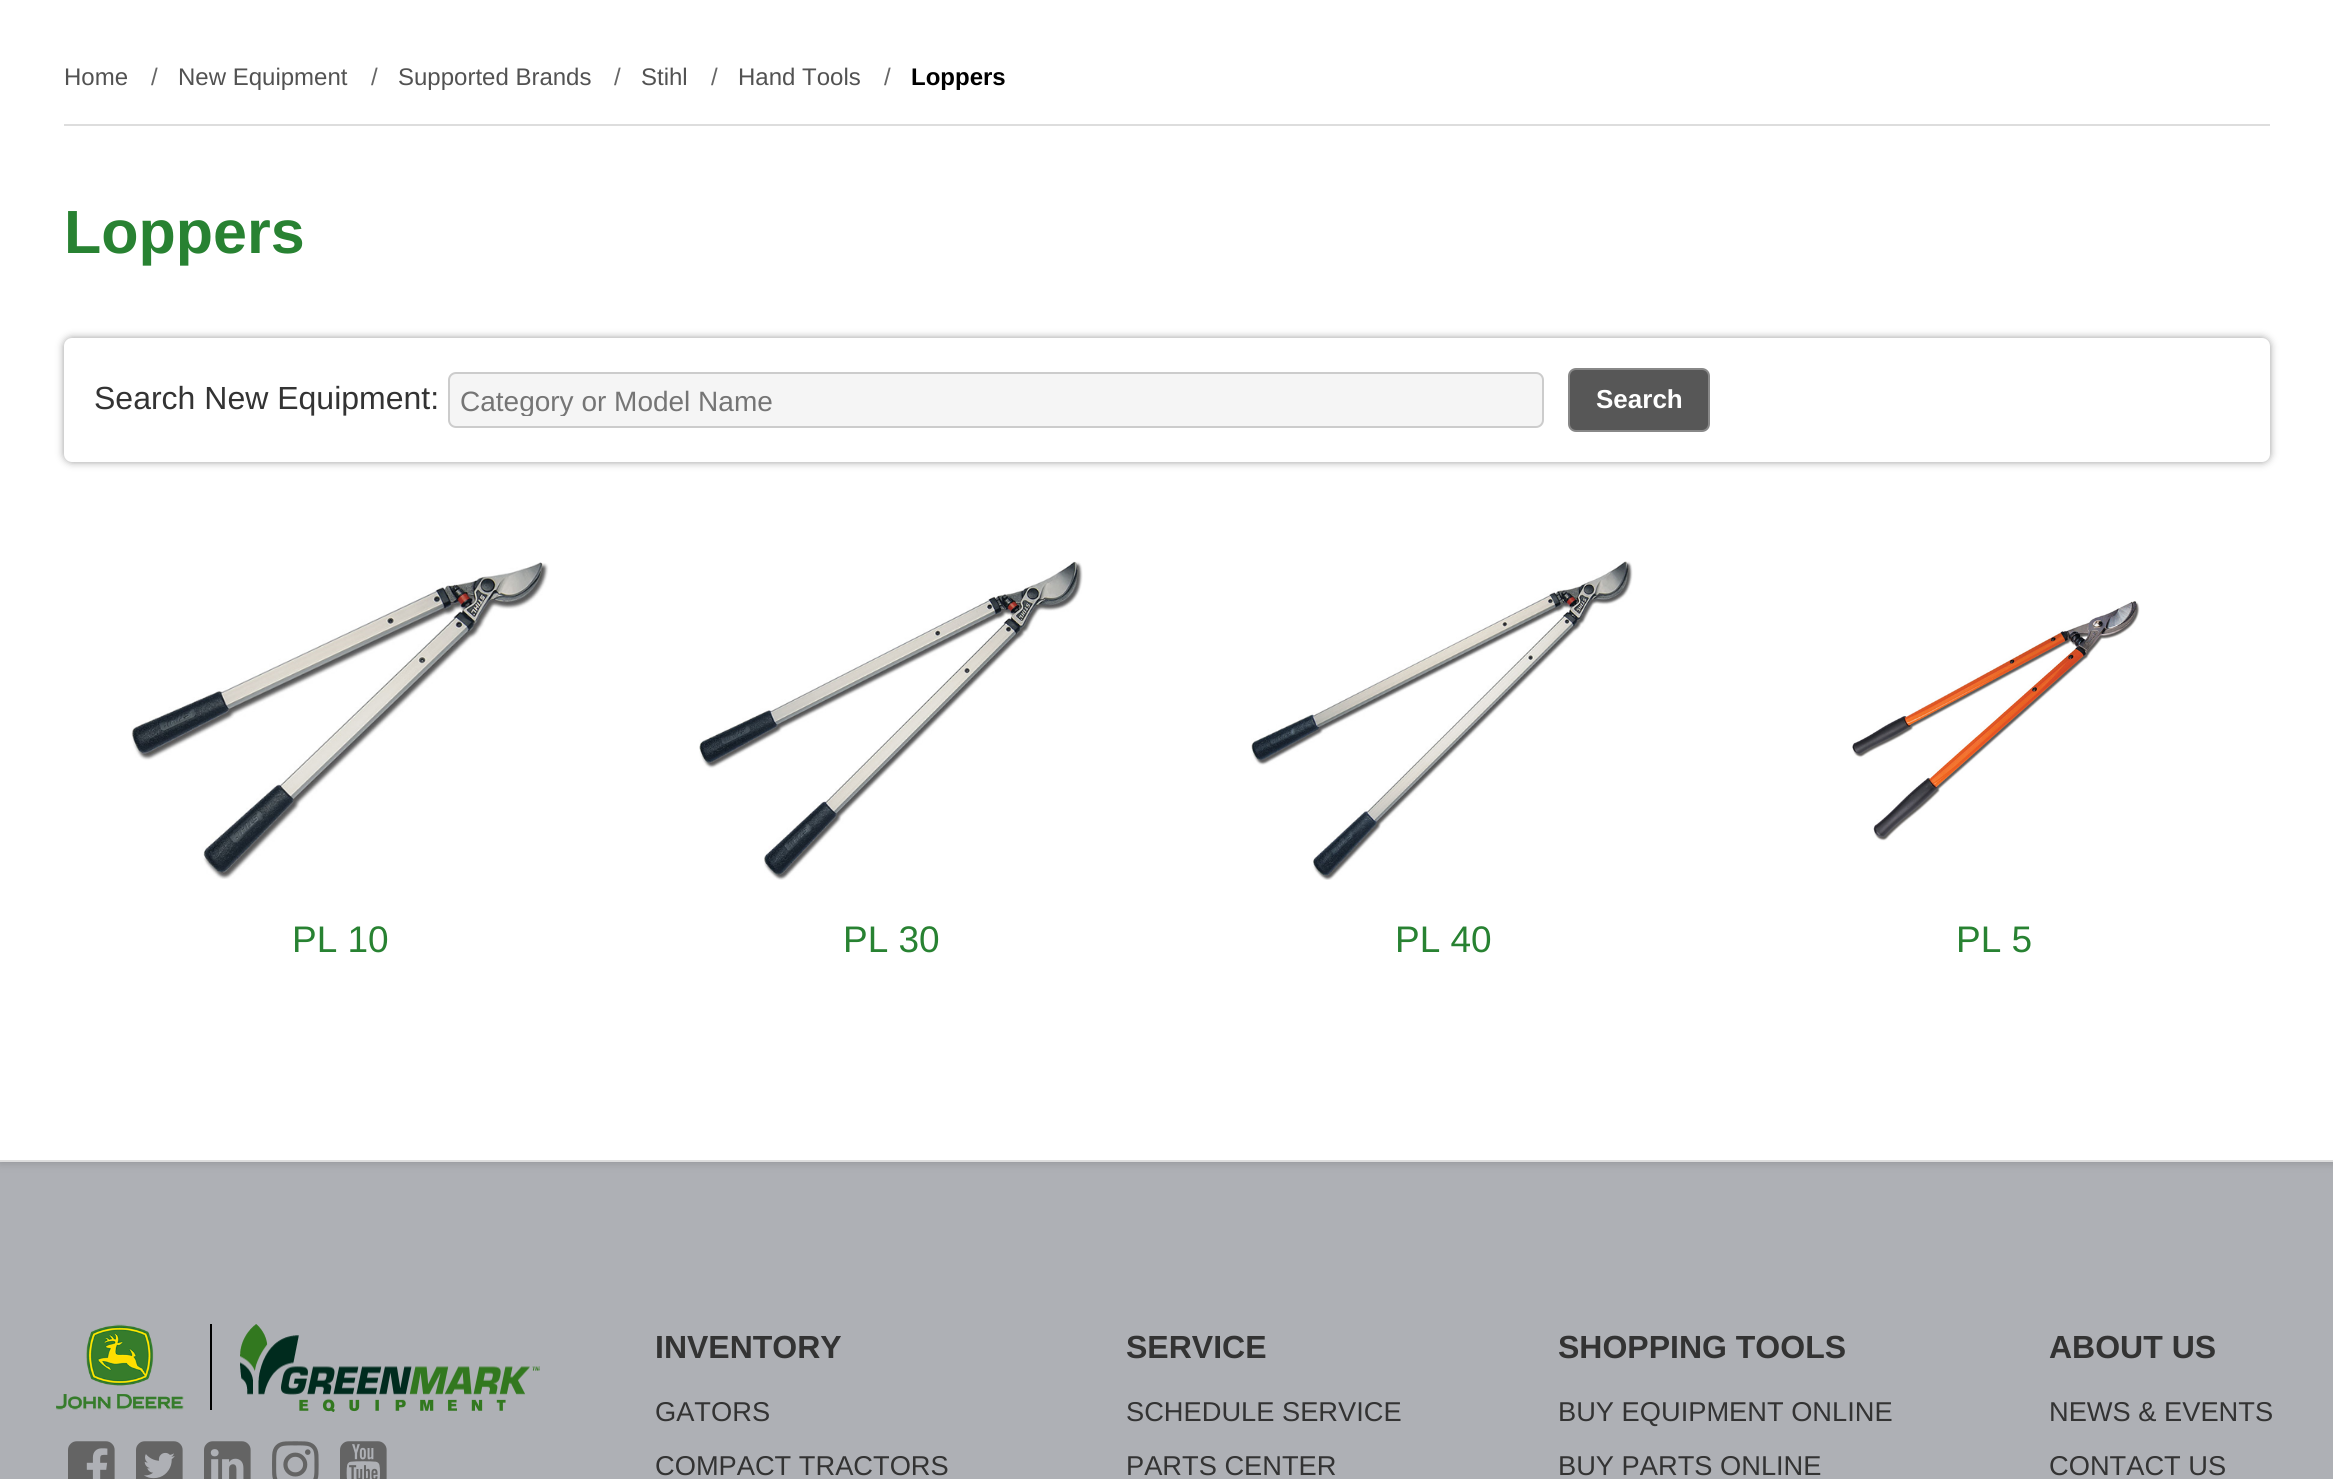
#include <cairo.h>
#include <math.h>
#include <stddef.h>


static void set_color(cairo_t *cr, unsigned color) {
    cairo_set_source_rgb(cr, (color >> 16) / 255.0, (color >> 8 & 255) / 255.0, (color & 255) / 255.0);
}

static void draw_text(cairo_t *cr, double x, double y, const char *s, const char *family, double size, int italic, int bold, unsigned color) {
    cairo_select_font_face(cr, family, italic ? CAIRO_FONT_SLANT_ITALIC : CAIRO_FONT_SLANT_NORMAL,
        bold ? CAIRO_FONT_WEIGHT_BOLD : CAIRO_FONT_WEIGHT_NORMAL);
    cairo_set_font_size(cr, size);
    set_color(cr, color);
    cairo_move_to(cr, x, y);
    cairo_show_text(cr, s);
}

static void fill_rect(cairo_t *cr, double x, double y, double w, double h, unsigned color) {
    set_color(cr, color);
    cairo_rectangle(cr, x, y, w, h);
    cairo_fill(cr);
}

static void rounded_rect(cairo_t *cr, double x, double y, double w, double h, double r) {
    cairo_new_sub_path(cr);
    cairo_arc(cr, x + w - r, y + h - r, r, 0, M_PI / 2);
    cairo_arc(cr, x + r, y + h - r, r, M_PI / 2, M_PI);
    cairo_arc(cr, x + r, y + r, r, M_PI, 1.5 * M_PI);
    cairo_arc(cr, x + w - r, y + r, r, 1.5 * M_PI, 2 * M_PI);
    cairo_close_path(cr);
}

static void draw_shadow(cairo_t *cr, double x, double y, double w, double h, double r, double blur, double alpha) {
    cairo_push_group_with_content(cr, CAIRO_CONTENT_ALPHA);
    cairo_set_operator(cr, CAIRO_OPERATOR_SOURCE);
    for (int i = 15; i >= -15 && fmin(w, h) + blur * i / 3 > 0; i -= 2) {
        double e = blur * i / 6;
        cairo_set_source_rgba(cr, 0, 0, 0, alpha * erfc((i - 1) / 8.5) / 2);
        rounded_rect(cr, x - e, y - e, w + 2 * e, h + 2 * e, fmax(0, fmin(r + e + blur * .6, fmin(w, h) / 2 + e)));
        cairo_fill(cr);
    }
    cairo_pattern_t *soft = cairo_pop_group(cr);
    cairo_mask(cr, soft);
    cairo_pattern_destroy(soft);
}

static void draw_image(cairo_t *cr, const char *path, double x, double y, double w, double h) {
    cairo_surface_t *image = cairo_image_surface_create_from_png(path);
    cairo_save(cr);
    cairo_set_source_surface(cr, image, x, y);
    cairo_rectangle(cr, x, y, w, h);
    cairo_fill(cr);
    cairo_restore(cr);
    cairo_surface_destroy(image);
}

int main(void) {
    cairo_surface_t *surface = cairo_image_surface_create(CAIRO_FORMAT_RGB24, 2333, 1479);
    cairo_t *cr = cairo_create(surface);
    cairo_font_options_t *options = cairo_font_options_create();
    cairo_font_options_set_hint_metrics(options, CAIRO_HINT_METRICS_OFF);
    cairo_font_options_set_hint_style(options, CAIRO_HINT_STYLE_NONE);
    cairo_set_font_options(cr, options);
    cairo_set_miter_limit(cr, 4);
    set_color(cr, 0xAEB0B5);
    cairo_paint(cr);
    set_color(cr, 0x000000);
    draw_shadow(cr, 0, -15, 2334, 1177, 0, 5, 0.2);
    fill_rect(cr, 0, 0, 2333, 1160, 0xFFFFFF);
    fill_rect(cr, 0, 1160, 2333, 2, 0xDDDDDD);
    fill_rect(cr, 64, 124, 2206, 2, 0xDDDDDD);
    draw_text(cr, 64, 85, "Home", "Liberation Sans", 24, 0, 0, 0x525252);
    draw_text(cr, 151, 85, "/", "Liberation Sans", 24, 0, 0, 0x666666);
    draw_text(cr, 178, 85, "New Equipment", "Liberation Sans", 24, 0, 0, 0x525252);
    draw_text(cr, 371, 85, "/", "Liberation Sans", 24, 0, 0, 0x666666);
    draw_text(cr, 398, 85, "Supported Brands", "Liberation Sans", 24, 0, 0, 0x525252);
    draw_text(cr, 614, 85, "/", "Liberation Sans", 24, 0, 0, 0x666666);
    draw_text(cr, 641, 85, "Stihl", "Liberation Sans", 24, 0, 0, 0x525252);
    draw_text(cr, 711, 85, "/", "Liberation Sans", 24, 0, 0, 0x666666);
    draw_text(cr, 738, 85, "Hand Tools", "Liberation Sans", 24, 0, 0, 0x525252);
    draw_text(cr, 884, 85, "/", "Liberation Sans", 24, 0, 0, 0x666666);
    draw_text(cr, 911, 85, "Loppers", "Liberation Sans", 24, 0, 1, 0x000000);
    draw_text(cr, 64, 253, "Loppers", "Liberation Sans", 61, 0, 1, 0x288232);
    set_color(cr, 0x999999);
    draw_shadow(cr, 64, 338, 2206, 124, 8, 4, 1);
    set_color(cr, 0xFFFFFF);
    rounded_rect(cr, 64, 338, 2206, 124, 8);
    cairo_fill(cr);
    draw_text(cr, 94, 409, "Search New Equipment:", "Liberation Sans", 32, 0, 0, 0x333333);
    set_color(cr, 0xF5F5F5);
    rounded_rect(cr, 449, 373, 1094, 54, 7);
    cairo_fill_preserve(cr);
    set_color(cr, 0xCCCCCC);
    cairo_stroke(cr);
    cairo_save(cr);
    cairo_rectangle(cr, 460, 384, 1072, 32);
    cairo_clip(cr);
    draw_text(cr, 460, 411, "Category or Model Name", "Liberation Sans", 28, 0, 0, 0x757575);
    cairo_restore(cr);
    set_color(cr, 0x575757);
    rounded_rect(cr, 1569, 369, 140, 62, 7);
    cairo_fill_preserve(cr);
    set_color(cr, 0x888888);
    cairo_stroke(cr);
    draw_text(cr, 1596, 408, "Search", "Liberation Sans", 26, 0, 1, 0xFFFFFF);
    draw_image(cr, "assets/img1.png", 131, 562, 418, 317);
    draw_text(cr, 292, 952, "PL 10", "Liberation Sans", 37, 0, 0, 0x288232);
    draw_image(cr, "assets/img2.png", 699, 561, 384, 319);
    draw_text(cr, 843, 952, "PL 30", "Liberation Sans", 37, 0, 0, 0x288232);
    draw_image(cr, "assets/img3.png", 1251, 561, 382, 319);
    draw_text(cr, 1395, 952, "PL 40", "Liberation Sans", 37, 0, 0, 0x288232);
    draw_image(cr, "assets/img4.png", 1852, 601, 288, 240);
    draw_text(cr, 1956, 952, "PL 5", "Liberation Sans", 37, 0, 0, 0x288232);
    fill_rect(cr, 210, 1324, 2, 86, 0x000000);
    draw_image(cr, "assets/img5.png", 56, 1324, 128, 86);
    draw_image(cr, "assets/img6.png", 240, 1324, 300, 88);
    draw_image(cr, "assets/img7.png", 68, 1441, 47, 38);
    draw_image(cr, "assets/img8.png", 136, 1441, 47, 38);
    draw_image(cr, "assets/img9.png", 204, 1441, 47, 38);
    draw_image(cr, "assets/img10.png", 272, 1441, 47, 38);
    draw_image(cr, "assets/img11.png", 340, 1441, 47, 38);
    draw_text(cr, 655, 1358, "INVENTORY", "Liberation Sans", 32, 0, 1, 0x333333);
    draw_text(cr, 655, 1421, "GATORS", "Liberation Sans", 27.25, 0, 0, 0x333333);
    draw_text(cr, 655, 1475, "COMPACT TRACTORS", "Liberation Sans", 27.25, 0, 0, 0x333333);
    draw_text(cr, 1126, 1358, "SERVICE", "Liberation Sans", 32, 0, 1, 0x333333);
    draw_text(cr, 1126, 1421, "SCHEDULE SERVICE", "Liberation Sans", 27.25, 0, 0, 0x333333);
    draw_text(cr, 1126, 1475, "PARTS CENTER", "Liberation Sans", 27.25, 0, 0, 0x333333);
    draw_text(cr, 1558, 1358, "SHOPPING TOOLS", "Liberation Sans", 32, 0, 1, 0x333333);
    draw_text(cr, 1558, 1421, "BUY EQUIPMENT ONLINE", "Liberation Sans", 27.25, 0, 0, 0x333333);
    draw_text(cr, 1558, 1475, "BUY PARTS ONLINE", "Liberation Sans", 27.25, 0, 0, 0x333333);
    draw_text(cr, 2049, 1358, "ABOUT US", "Liberation Sans", 32, 0, 1, 0x333333);
    draw_text(cr, 2049, 1421, "NEWS & EVENTS", "Liberation Sans", 27.25, 0, 0, 0x333333);
    draw_text(cr, 2049, 1475, "CONTACT US", "Liberation Sans", 27.25, 0, 0, 0x333333);
    cairo_surface_write_to_png(surface, "output.png");
    cairo_font_options_destroy(options);
    cairo_destroy(cr);
    cairo_surface_destroy(surface);
    return 0;
}
